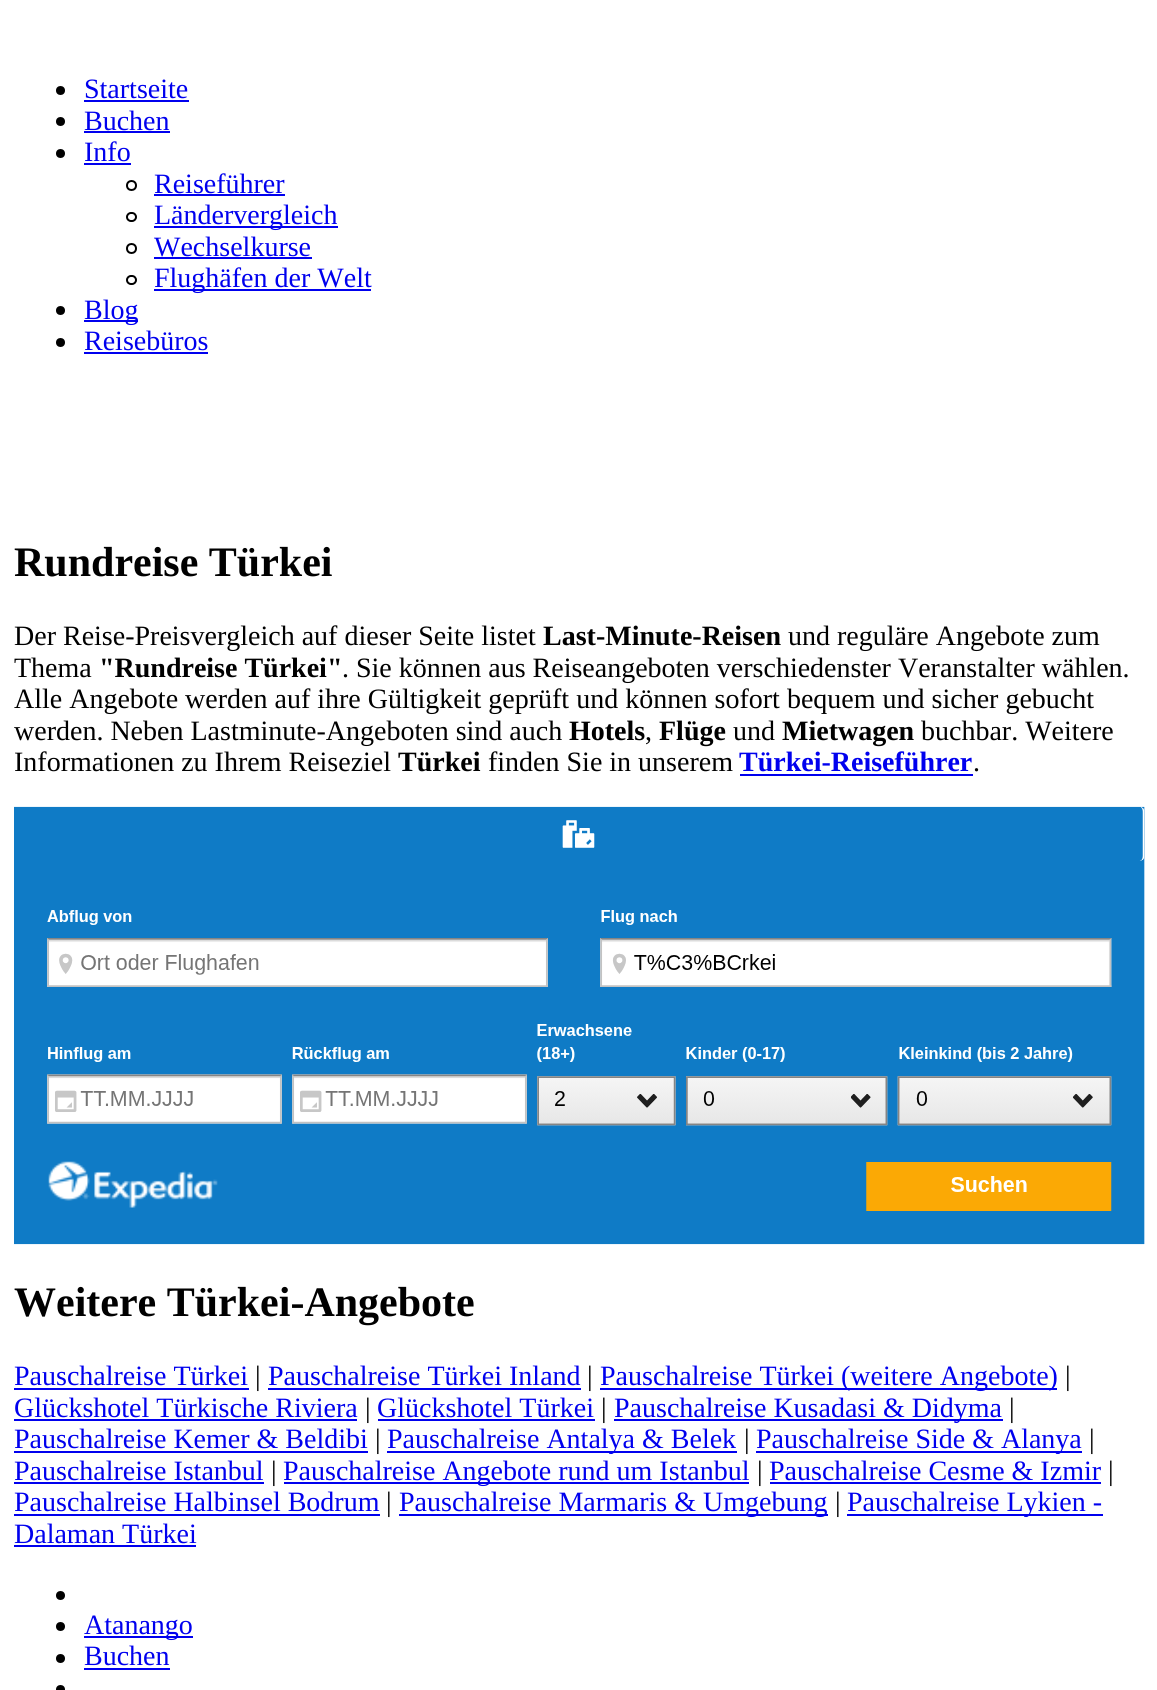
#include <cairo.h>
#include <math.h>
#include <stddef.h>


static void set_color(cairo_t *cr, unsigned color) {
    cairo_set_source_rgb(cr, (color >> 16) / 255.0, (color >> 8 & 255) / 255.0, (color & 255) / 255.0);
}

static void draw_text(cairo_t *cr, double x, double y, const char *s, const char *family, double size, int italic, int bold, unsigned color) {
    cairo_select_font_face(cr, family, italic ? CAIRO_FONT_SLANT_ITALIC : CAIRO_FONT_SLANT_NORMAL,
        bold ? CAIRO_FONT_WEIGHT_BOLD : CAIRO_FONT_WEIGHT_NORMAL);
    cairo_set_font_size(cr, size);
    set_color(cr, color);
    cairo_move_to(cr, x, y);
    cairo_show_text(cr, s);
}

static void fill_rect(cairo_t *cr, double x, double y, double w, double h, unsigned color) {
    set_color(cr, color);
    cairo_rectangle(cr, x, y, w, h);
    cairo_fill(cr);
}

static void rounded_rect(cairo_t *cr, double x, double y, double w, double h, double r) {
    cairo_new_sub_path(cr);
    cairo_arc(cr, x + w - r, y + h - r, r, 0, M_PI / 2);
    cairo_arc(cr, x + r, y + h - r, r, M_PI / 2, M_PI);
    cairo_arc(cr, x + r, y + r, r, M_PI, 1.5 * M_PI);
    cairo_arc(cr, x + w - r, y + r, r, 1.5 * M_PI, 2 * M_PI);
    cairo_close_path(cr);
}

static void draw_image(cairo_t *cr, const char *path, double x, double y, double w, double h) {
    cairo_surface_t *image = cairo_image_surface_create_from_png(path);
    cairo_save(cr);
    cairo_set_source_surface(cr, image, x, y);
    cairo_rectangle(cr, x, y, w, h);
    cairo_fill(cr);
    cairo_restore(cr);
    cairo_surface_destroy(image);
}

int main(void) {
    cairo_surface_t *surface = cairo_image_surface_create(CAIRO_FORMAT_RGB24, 1157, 1690);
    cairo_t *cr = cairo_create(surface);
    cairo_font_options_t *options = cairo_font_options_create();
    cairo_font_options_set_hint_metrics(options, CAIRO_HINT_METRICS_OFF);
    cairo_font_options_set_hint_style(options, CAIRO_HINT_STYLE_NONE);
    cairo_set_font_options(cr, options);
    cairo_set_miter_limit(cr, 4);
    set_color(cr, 0xFFFFFF);
    cairo_paint(cr);
    set_color(cr, 0x000000);
    cairo_arc(cr, 60.5, 90.5, 4.5, 0, 2 * M_PI);
    cairo_fill(cr);
    draw_text(cr, 84, 98, "Startseite", "Liberation Serif", 28, 0, 0, 0x0000EE);
    fill_rect(cr, 84, 100, 105, 2, 0x0000EE);
    set_color(cr, 0x000000);
    cairo_new_path(cr);
    cairo_arc(cr, 60.5, 121.5, 4.5, 0, 2 * M_PI);
    cairo_fill(cr);
    draw_text(cr, 84, 130, "Buchen", "Liberation Serif", 28, 0, 0, 0x0000EE);
    fill_rect(cr, 84, 131, 86, 2, 0x0000EE);
    set_color(cr, 0x000000);
    cairo_new_path(cr);
    cairo_arc(cr, 60.5, 153.5, 4.5, 0, 2 * M_PI);
    cairo_fill(cr);
    draw_text(cr, 84, 161, "Info", "Liberation Serif", 28, 0, 0, 0x0000EE);
    fill_rect(cr, 84, 163, 47, 2, 0x0000EE);
    cairo_new_path(cr);
    cairo_arc(cr, 131.5, 185.5, 4.5, 0, 2 * M_PI);
    set_color(cr, 0x000000);
    cairo_stroke(cr);
    draw_text(cr, 154, 193, "Reiseführer", "Liberation Serif", 28, 0, 0, 0x0000EE);
    fill_rect(cr, 154, 194, 131, 2, 0x0000EE);
    rounded_rect(cr, 127, 213, 9, 8, 4);
    set_color(cr, 0x000000);
    cairo_stroke(cr);
    fill_rect(cr, 154, 226, 184, 2, 0x0000EE);
    draw_text(cr, 154, 224, "Ländervergleich", "Liberation Serif", 28, 0, 0, 0x0000EE);
    cairo_new_path(cr);
    cairo_arc(cr, 131.5, 248.5, 4.5, 0, 2 * M_PI);
    set_color(cr, 0x000000);
    cairo_stroke(cr);
    draw_text(cr, 154, 256, "Wechselkurse", "Liberation Serif", 28, 0, 0, 0x0000EE);
    fill_rect(cr, 154, 257, 158, 2, 0x0000EE);
    rounded_rect(cr, 127, 276, 9, 8, 4);
    set_color(cr, 0x000000);
    cairo_stroke(cr);
    fill_rect(cr, 154, 289, 217, 2, 0x0000EE);
    draw_text(cr, 154, 287, "Flughäfen der Welt", "Liberation Serif", 28, 0, 0, 0x0000EE);
    set_color(cr, 0x000000);
    cairo_new_path(cr);
    cairo_arc(cr, 60.5, 310.5, 4.5, 0, 2 * M_PI);
    cairo_fill(cr);
    fill_rect(cr, 84, 320, 54, 2, 0x0000EE);
    draw_text(cr, 84, 319, "Blog", "Liberation Serif", 28, 0, 0, 0x0000EE);
    set_color(cr, 0x000000);
    cairo_new_path(cr);
    cairo_arc(cr, 60.5, 342.5, 4.5, 0, 2 * M_PI);
    cairo_fill(cr);
    draw_text(cr, 84, 350, "Reisebüros", "Liberation Serif", 28, 0, 0, 0x0000EE);
    fill_rect(cr, 84, 352, 124, 2, 0x0000EE);
    draw_text(cr, 14, 576, "Rundreise Türkei", "Liberation Serif", 42, 0, 1, 0x000000);
    draw_text(cr, 14, 645, "Der Reise-Preisvergleich auf dieser Seite listet", "Liberation Serif", 28, 0, 0, 0x000000);
    draw_text(cr, 543, 645, "Last-Minute-Reisen", "Liberation Serif", 28, 0, 1, 0x000000);
    draw_text(cr, 788, 645, "und reguläre Angebote zum", "Liberation Serif", 28, 0, 0, 0x000000);
    draw_text(cr, 14, 677, "Thema", "Liberation Serif", 28, 0, 0, 0x000000);
    draw_text(cr, 99, 677, "\"Rundreise Türkei\"", "Liberation Serif", 28, 0, 1, 0x000000);
    draw_text(cr, 342, 677, ". Sie können aus Reiseangeboten verschiedenster Veranstalter wählen.", "Liberation Serif", 28, 0, 0, 0x000000);
    draw_text(cr, 14, 708, "Alle Angebote werden auf ihre Gültigkeit geprüft und können sofort bequem und sicher gebucht", "Liberation Serif", 28, 0, 0, 0x000000);
    draw_text(cr, 14, 740, "werden. Neben Lastminute-Angeboten sind auch", "Liberation Serif", 28, 0, 0, 0x000000);
    draw_text(cr, 569, 740, "Hotels", "Liberation Serif", 28, 0, 1, 0x000000);
    draw_text(cr, 645, 740, ",", "Liberation Serif", 28, 0, 0, 0x000000);
    draw_text(cr, 659, 740, "Flüge", "Liberation Serif", 28, 0, 1, 0x000000);
    draw_text(cr, 733, 740, "und", "Liberation Serif", 28, 0, 0, 0x000000);
    draw_text(cr, 782, 740, "Mietwagen", "Liberation Serif", 28, 0, 1, 0x000000);
    draw_text(cr, 921, 740, "buchbar. Weitere", "Liberation Serif", 28, 0, 0, 0x000000);
    draw_text(cr, 14, 771, "Informationen zu Ihrem Reiseziel", "Liberation Serif", 28, 0, 0, 0x000000);
    draw_text(cr, 398, 771, "Türkei", "Liberation Serif", 28, 0, 1, 0x000000);
    draw_text(cr, 488, 771, "finden Sie in unserem", "Liberation Serif", 28, 0, 0, 0x000000);
    draw_text(cr, 739, 771, "Türkei-Reiseführer", "Liberation Serif", 28, 0, 1, 0x0000EE);
    fill_rect(cr, 740, 774, 233, 2, 0x0000EE);
    draw_text(cr, 973, 771, ".", "Liberation Serif", 28, 0, 0, 0x000000);
    draw_image(cr, "assets/img1.png", 14, 806, 1131, 439);
    draw_text(cr, 14, 1316, "Weitere Türkei-Angebote", "Liberation Serif", 42, 0, 1, 0x000000);
    draw_text(cr, 14, 1385, "Pauschalreise Türkei", "Liberation Serif", 28, 0, 0, 0x0000EE);
    fill_rect(cr, 14, 1388, 235, 2, 0x0000EE);
    draw_text(cr, 255, 1385, "|", "Liberation Serif", 28, 0, 0, 0x000000);
    draw_text(cr, 268, 1385, "Pauschalreise Türkei Inland", "Liberation Serif", 28, 0, 0, 0x0000EE);
    fill_rect(cr, 268, 1388, 313, 2, 0x0000EE);
    draw_text(cr, 587, 1385, "|", "Liberation Serif", 28, 0, 0, 0x000000);
    fill_rect(cr, 600, 1388, 457, 2, 0x0000EE);
    draw_text(cr, 600, 1385, "Pauschalreise Türkei (weitere Angebote)", "Liberation Serif", 28, 0, 0, 0x0000EE);
    draw_text(cr, 1065, 1385, "|", "Liberation Serif", 28, 0, 0, 0x000000);
    draw_text(cr, 14, 1417, "Glückshotel Türkische Riviera", "Liberation Serif", 28, 0, 0, 0x0000EE);
    fill_rect(cr, 14, 1419, 343, 2, 0x0000EE);
    draw_text(cr, 365, 1417, "|", "Liberation Serif", 28, 0, 0, 0x000000);
    draw_text(cr, 377, 1417, "Glückshotel Türkei", "Liberation Serif", 28, 0, 0, 0x0000EE);
    fill_rect(cr, 378, 1419, 217, 2, 0x0000EE);
    draw_text(cr, 601, 1417, "|", "Liberation Serif", 28, 0, 0, 0x000000);
    fill_rect(cr, 614, 1419, 389, 2, 0x0000EE);
    draw_text(cr, 614, 1417, "Pauschalreise Kusadasi & Didyma", "Liberation Serif", 28, 0, 0, 0x0000EE);
    draw_text(cr, 1009, 1417, "|", "Liberation Serif", 28, 0, 0, 0x000000);
    draw_text(cr, 14, 1448, "Pauschalreise Kemer & Beldibi", "Liberation Serif", 28, 0, 0, 0x0000EE);
    fill_rect(cr, 14, 1451, 354, 2, 0x0000EE);
    draw_text(cr, 375, 1448, "|", "Liberation Serif", 28, 0, 0, 0x000000);
    fill_rect(cr, 387, 1451, 350, 2, 0x0000EE);
    draw_text(cr, 387, 1448, "Pauschalreise Antalya & Belek", "Liberation Serif", 28, 0, 0, 0x0000EE);
    draw_text(cr, 744, 1448, "|", "Liberation Serif", 28, 0, 0, 0x000000);
    fill_rect(cr, 756, 1451, 326, 2, 0x0000EE);
    draw_text(cr, 756, 1448, "Pauschalreise Side & Alanya", "Liberation Serif", 28, 0, 0, 0x0000EE);
    draw_text(cr, 1089, 1448, "|", "Liberation Serif", 28, 0, 0, 0x000000);
    draw_text(cr, 14, 1480, "Pauschalreise Istanbul", "Liberation Serif", 28, 0, 0, 0x0000EE);
    fill_rect(cr, 14, 1482, 250, 2, 0x0000EE);
    draw_text(cr, 271, 1480, "|", "Liberation Serif", 28, 0, 0, 0x000000);
    fill_rect(cr, 284, 1482, 465, 2, 0x0000EE);
    draw_text(cr, 283, 1480, "Pauschalreise Angebote rund um Istanbul", "Liberation Serif", 28, 0, 0, 0x0000EE);
    draw_text(cr, 757, 1480, "|", "Liberation Serif", 28, 0, 0, 0x000000);
    draw_text(cr, 769, 1480, "Pauschalreise Cesme & Izmir", "Liberation Serif", 28, 0, 0, 0x0000EE);
    fill_rect(cr, 770, 1482, 331, 2, 0x0000EE);
    draw_text(cr, 1108, 1480, "|", "Liberation Serif", 28, 0, 0, 0x000000);
    draw_text(cr, 14, 1511, "Pauschalreise Halbinsel Bodrum", "Liberation Serif", 28, 0, 0, 0x0000EE);
    fill_rect(cr, 14, 1514, 366, 2, 0x0000EE);
    draw_text(cr, 386, 1511, "|", "Liberation Serif", 28, 0, 0, 0x000000);
    fill_rect(cr, 399, 1514, 429, 2, 0x0000EE);
    draw_text(cr, 399, 1511, "Pauschalreise Marmaris & Umgebung", "Liberation Serif", 28, 0, 0, 0x0000EE);
    draw_text(cr, 835, 1511, "|", "Liberation Serif", 28, 0, 0, 0x000000);
    fill_rect(cr, 847, 1514, 256, 2, 0x0000EE);
    draw_text(cr, 847, 1511, "Pauschalreise Lykien -", "Liberation Serif", 28, 0, 0, 0x0000EE);
    draw_text(cr, 14, 1543, "Dalaman Türkei", "Liberation Serif", 28, 0, 0, 0x0000EE);
    fill_rect(cr, 14, 1545, 182, 2, 0x0000EE);
    set_color(cr, 0x000000);
    cairo_new_path(cr);
    cairo_arc(cr, 60.5, 1595.5, 4.5, 0, 2 * M_PI);
    cairo_fill(cr);
    cairo_arc(cr, 60.5, 1626.5, 4.5, 0, 2 * M_PI);
    cairo_fill(cr);
    fill_rect(cr, 84, 1636, 109, 2, 0x0000EE);
    draw_text(cr, 84, 1634, "Atanango", "Liberation Serif", 28, 0, 0, 0x0000EE);
    set_color(cr, 0x000000);
    cairo_new_path(cr);
    cairo_arc(cr, 60.5, 1658.5, 4.5, 0, 2 * M_PI);
    cairo_fill(cr);
    draw_text(cr, 84, 1665, "Buchen", "Liberation Serif", 28, 0, 0, 0x0000EE);
    fill_rect(cr, 84, 1668, 86, 2, 0x0000EE);
    set_color(cr, 0x000000);
    cairo_new_path(cr);
    cairo_arc(cr, 60.5, 1689.5, 4.5, 0, 2 * M_PI);
    cairo_fill(cr);
    cairo_surface_write_to_png(surface, "output.png");
    cairo_font_options_destroy(options);
    cairo_destroy(cr);
    cairo_surface_destroy(surface);
    return 0;
}
